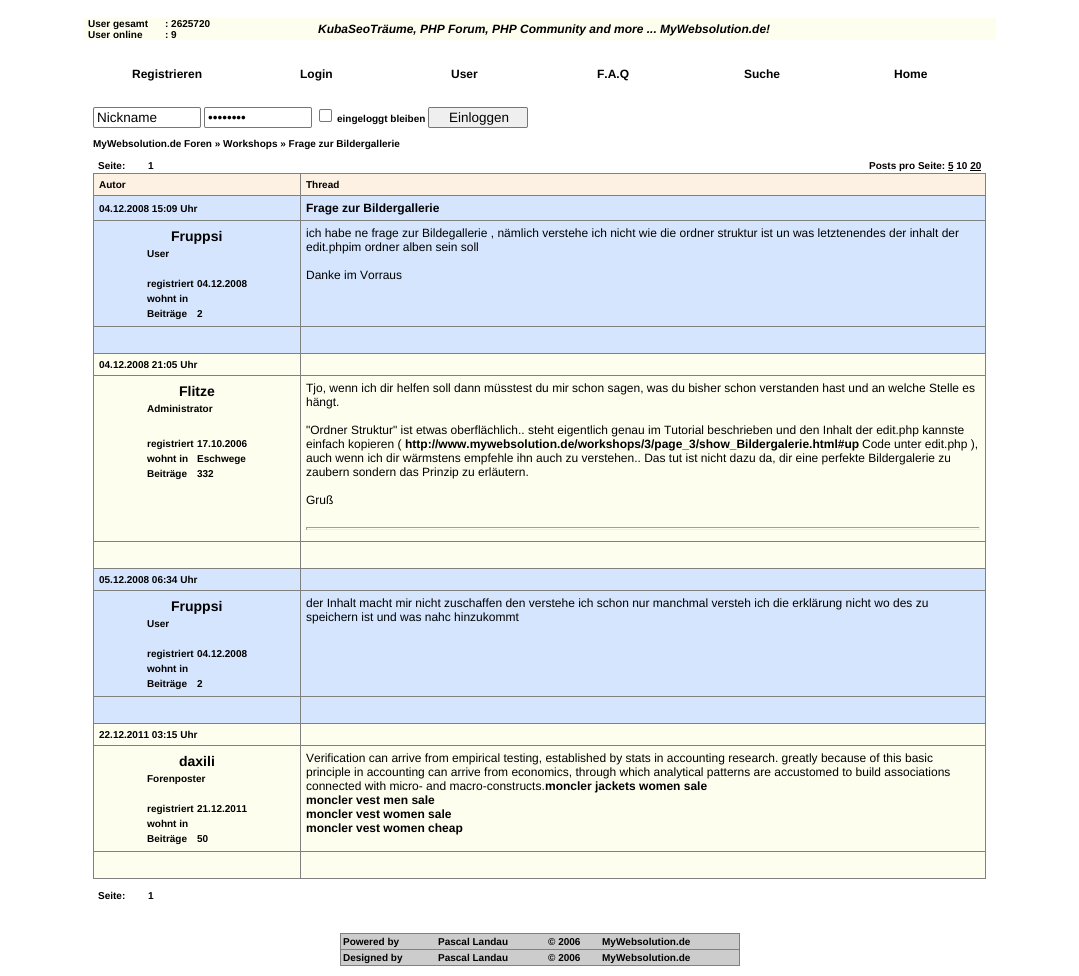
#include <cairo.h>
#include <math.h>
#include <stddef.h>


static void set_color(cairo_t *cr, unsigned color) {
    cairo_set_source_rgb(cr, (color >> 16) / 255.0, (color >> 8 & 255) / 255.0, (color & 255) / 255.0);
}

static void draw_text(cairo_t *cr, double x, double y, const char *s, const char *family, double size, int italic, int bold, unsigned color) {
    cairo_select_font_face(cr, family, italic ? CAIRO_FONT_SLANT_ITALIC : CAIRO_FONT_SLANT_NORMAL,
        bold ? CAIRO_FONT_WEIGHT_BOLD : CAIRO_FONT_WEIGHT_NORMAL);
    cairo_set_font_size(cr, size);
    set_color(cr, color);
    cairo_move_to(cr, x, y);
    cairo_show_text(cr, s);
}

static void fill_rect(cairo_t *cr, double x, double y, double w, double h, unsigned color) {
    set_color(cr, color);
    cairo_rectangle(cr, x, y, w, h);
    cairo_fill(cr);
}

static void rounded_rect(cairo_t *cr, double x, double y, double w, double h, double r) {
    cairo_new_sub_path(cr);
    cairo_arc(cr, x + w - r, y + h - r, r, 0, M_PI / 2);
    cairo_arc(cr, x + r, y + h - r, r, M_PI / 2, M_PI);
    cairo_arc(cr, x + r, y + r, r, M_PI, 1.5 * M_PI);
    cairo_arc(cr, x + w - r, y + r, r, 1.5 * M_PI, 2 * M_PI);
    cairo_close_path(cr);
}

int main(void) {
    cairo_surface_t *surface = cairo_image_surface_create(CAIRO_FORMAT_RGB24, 1079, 976);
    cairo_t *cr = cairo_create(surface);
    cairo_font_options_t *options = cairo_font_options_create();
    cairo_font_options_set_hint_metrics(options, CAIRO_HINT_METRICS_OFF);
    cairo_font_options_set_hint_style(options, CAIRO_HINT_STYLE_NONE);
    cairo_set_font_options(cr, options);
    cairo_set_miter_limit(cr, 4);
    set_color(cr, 0xFFFFFF);
    cairo_paint(cr);
    fill_rect(cr, 83, 18, 913, 22, 0xFEFEEF);
    draw_text(cr, 88, 27, "User gesamt", "Liberation Sans", 10, 0, 1, 0x000000);
    draw_text(cr, 165, 27, ": 2625720", "Liberation Sans", 10, 0, 1, 0x000000);
    draw_text(cr, 88, 38, "User online", "Liberation Sans", 10, 0, 1, 0x000000);
    draw_text(cr, 165, 38, ": 9", "Liberation Sans", 10, 0, 1, 0x000000);
    draw_text(cr, 318, 33, "KubaSeoTräume, PHP Forum, PHP Community and more ... MyWebsolution.de!", "Liberation Sans", 12, 1, 1, 0x000000);
    draw_text(cr, 132, 78, "Registrieren", "Liberation Sans", 12, 0, 1, 0x000000);
    draw_text(cr, 300, 78, "Login", "Liberation Sans", 12, 0, 1, 0x000000);
    draw_text(cr, 451, 78, "User", "Liberation Sans", 12, 0, 1, 0x000000);
    draw_text(cr, 597, 78, "F.A.Q", "Liberation Sans", 12, 0, 1, 0x000000);
    draw_text(cr, 744, 78, "Suche", "Liberation Sans", 12, 0, 1, 0x000000);
    draw_text(cr, 894, 78, "Home", "Liberation Sans", 12, 0, 1, 0x000000);
    rounded_rect(cr, 93.5, 107.5, 107, 20, 1.5);
    set_color(cr, 0x767676);
    cairo_set_line_width(cr, 1);
    cairo_stroke(cr);
    draw_text(cr, 97, 122, "Nickname", "Liberation Sans", 13.5, 0, 0, 0x000000);
    rounded_rect(cr, 204.5, 107.5, 107, 20, 1.5);
    set_color(cr, 0x767676);
    cairo_stroke(cr);
    draw_text(cr, 208, 122, "••••••••", "Liberation Sans", 13.5, 0, 0, 0x000000);
    rounded_rect(cr, 319.5, 109.5, 12, 12, 1.5);
    set_color(cr, 0x767676);
    cairo_stroke(cr);
    draw_text(cr, 337, 122, "eingeloggt bleiben", "Liberation Sans", 10, 0, 1, 0x000000);
    set_color(cr, 0xEFEFEF);
    rounded_rect(cr, 428.5, 107.5, 99, 20, 1.5);
    cairo_fill_preserve(cr);
    set_color(cr, 0x767676);
    cairo_stroke(cr);
    draw_text(cr, 449, 122, "Einloggen", "Liberation Sans", 13.5, 0, 0, 0x000000);
    draw_text(cr, 93, 147, "MyWebsolution.de Foren » Workshops » Frage zur Bildergallerie", "Liberation Sans", 10, 0, 1, 0x000000);
    draw_text(cr, 98, 169, "Seite:", "Liberation Sans", 10, 0, 1, 0x000000);
    draw_text(cr, 148, 169, "1", "Liberation Sans", 10, 0, 1, 0x000000);
    draw_text(cr, 869, 169, "Posts pro Seite: 5 10 20", "Liberation Sans", 10, 0, 1, 0x000000);
    fill_rect(cr, 948, 170, 5, 1, 0x000000);
    fill_rect(cr, 970, 170, 11, 1, 0x000000);
    fill_rect(cr, 93, 173, 893, 1, 0x808080);
    fill_rect(cr, 985, 173, 1, 706, 0x808080);
    fill_rect(cr, 93, 878, 893, 1, 0x808080);
    fill_rect(cr, 93, 173, 1, 706, 0x808080);
    fill_rect(cr, 94, 174, 206, 21, 0xFDF1E3);
    draw_text(cr, 99, 188, "Autor", "Liberation Sans", 10, 0, 1, 0x000000);
    fill_rect(cr, 301, 174, 684, 21, 0xFDF1E3);
    fill_rect(cr, 300, 195, 686, 1, 0x808080);
    fill_rect(cr, 94, 196, 891, 24, 0xD5E5FD);
    fill_rect(cr, 300, 220, 686, 1, 0x808080);
    fill_rect(cr, 94, 221, 891, 105, 0xD5E5FD);
    fill_rect(cr, 300, 326, 686, 1, 0x808080);
    fill_rect(cr, 94, 327, 891, 26, 0xD5E5FD);
    fill_rect(cr, 300, 353, 686, 1, 0x808080);
    fill_rect(cr, 94, 354, 891, 21, 0xFEFEEF);
    fill_rect(cr, 300, 375, 686, 1, 0x808080);
    fill_rect(cr, 94, 376, 891, 165, 0xFEFEEF);
    fill_rect(cr, 300, 541, 686, 1, 0x808080);
    fill_rect(cr, 94, 542, 891, 26, 0xFEFEEF);
    fill_rect(cr, 300, 568, 686, 1, 0x808080);
    fill_rect(cr, 94, 569, 891, 21, 0xD5E5FD);
    fill_rect(cr, 300, 590, 686, 1, 0x808080);
    fill_rect(cr, 94, 591, 891, 105, 0xD5E5FD);
    fill_rect(cr, 300, 696, 686, 1, 0x808080);
    fill_rect(cr, 94, 697, 891, 26, 0xD5E5FD);
    fill_rect(cr, 300, 723, 686, 1, 0x808080);
    fill_rect(cr, 94, 724, 891, 21, 0xFEFEEF);
    fill_rect(cr, 300, 745, 686, 1, 0x808080);
    fill_rect(cr, 94, 746, 891, 105, 0xFEFEEF);
    fill_rect(cr, 300, 851, 686, 1, 0x808080);
    fill_rect(cr, 94, 852, 891, 26, 0xFEFEEF);
    fill_rect(cr, 300, 851, 1, 28, 0x808080);
    fill_rect(cr, 93, 851, 208, 1, 0x808080);
    fill_rect(cr, 300, 745, 1, 107, 0x808080);
    fill_rect(cr, 93, 745, 208, 1, 0x808080);
    fill_rect(cr, 300, 723, 1, 23, 0x808080);
    fill_rect(cr, 93, 723, 208, 1, 0x808080);
    fill_rect(cr, 300, 696, 1, 28, 0x808080);
    fill_rect(cr, 93, 696, 208, 1, 0x808080);
    fill_rect(cr, 300, 590, 1, 107, 0x808080);
    fill_rect(cr, 93, 590, 208, 1, 0x808080);
    fill_rect(cr, 300, 568, 1, 23, 0x808080);
    fill_rect(cr, 93, 568, 208, 1, 0x808080);
    fill_rect(cr, 300, 541, 1, 28, 0x808080);
    fill_rect(cr, 93, 541, 208, 1, 0x808080);
    fill_rect(cr, 300, 375, 1, 167, 0x808080);
    fill_rect(cr, 93, 375, 208, 1, 0x808080);
    fill_rect(cr, 300, 353, 1, 23, 0x808080);
    fill_rect(cr, 93, 353, 208, 1, 0x808080);
    fill_rect(cr, 300, 326, 1, 28, 0x808080);
    fill_rect(cr, 93, 326, 208, 1, 0x808080);
    fill_rect(cr, 300, 220, 1, 107, 0x808080);
    fill_rect(cr, 93, 220, 208, 1, 0x808080);
    fill_rect(cr, 300, 195, 1, 26, 0x808080);
    fill_rect(cr, 93, 195, 208, 1, 0x808080);
    fill_rect(cr, 300, 173, 1, 23, 0x808080);
    draw_text(cr, 306, 188, "Thread", "Liberation Sans", 10, 0, 1, 0x000000);
    draw_text(cr, 99, 212, "04.12.2008 15:09 Uhr", "Liberation Sans", 10, 0, 1, 0x000000);
    draw_text(cr, 306, 212, "Frage zur Bildergallerie", "Liberation Sans", 12, 0, 1, 0x000000);
    draw_text(cr, 171, 241, "Fruppsi", "Liberation Sans", 14, 0, 1, 0x000000);
    draw_text(cr, 147, 257, "User", "Liberation Sans", 10, 0, 1, 0x000000);
    draw_text(cr, 147, 287, "registriert", "Liberation Sans", 10, 0, 1, 0x000000);
    draw_text(cr, 197, 287, "04.12.2008", "Liberation Sans", 10, 0, 1, 0x000000);
    draw_text(cr, 147, 302, "wohnt in", "Liberation Sans", 10, 0, 1, 0x000000);
    draw_text(cr, 147, 317, "Beiträge", "Liberation Sans", 10, 0, 1, 0x000000);
    draw_text(cr, 197, 317, "2", "Liberation Sans", 10, 0, 1, 0x000000);
    draw_text(cr, 306, 237, "ich habe ne frage zur Bildegallerie , nämlich verstehe ich nicht wie die ordner struktur ist un was letztenendes der inhalt der", "Liberation Sans", 12, 0, 0, 0x000000);
    draw_text(cr, 306, 251, "edit.phpim ordner alben sein soll", "Liberation Sans", 12, 0, 0, 0x000000);
    draw_text(cr, 306, 279, "Danke im Vorraus", "Liberation Sans", 12, 0, 0, 0x000000);
    draw_text(cr, 99, 368, "04.12.2008 21:05 Uhr", "Liberation Sans", 10, 0, 1, 0x000000);
    draw_text(cr, 179, 396, "Flitze", "Liberation Sans", 14, 0, 1, 0x000000);
    draw_text(cr, 147, 412, "Administrator", "Liberation Sans", 10, 0, 1, 0x000000);
    draw_text(cr, 147, 447, "registriert", "Liberation Sans", 10, 0, 1, 0x000000);
    draw_text(cr, 197, 447, "17.10.2006", "Liberation Sans", 10, 0, 1, 0x000000);
    draw_text(cr, 147, 462, "wohnt in", "Liberation Sans", 10, 0, 1, 0x000000);
    draw_text(cr, 197, 462, "Eschwege", "Liberation Sans", 10, 0, 1, 0x000000);
    draw_text(cr, 147, 477, "Beiträge", "Liberation Sans", 10, 0, 1, 0x000000);
    draw_text(cr, 197, 477, "332", "Liberation Sans", 10, 0, 1, 0x000000);
    draw_text(cr, 306, 392, "Tjo, wenn ich dir helfen soll dann müsstest du mir schon sagen, was du bisher schon verstanden hast und an welche Stelle es", "Liberation Sans", 12, 0, 0, 0x000000);
    draw_text(cr, 306, 406, "hängt.", "Liberation Sans", 12, 0, 0, 0x000000);
    draw_text(cr, 306, 434, "\"Ordner Struktur\" ist etwas oberflächlich.. steht eigentlich genau im Tutorial beschrieben und den Inhalt der edit.php kannste", "Liberation Sans", 12, 0, 0, 0x000000);
    draw_text(cr, 306, 448, "einfach kopieren (", "Liberation Sans", 12, 0, 0, 0x000000);
    draw_text(cr, 405, 448, "http://www.mywebsolution.de/workshops/3/page_3/show_Bildergalerie.html#up", "Liberation Sans", 12, 0, 1, 0x000000);
    draw_text(cr, 862, 448, "Code unter edit.php ),", "Liberation Sans", 12, 0, 0, 0x000000);
    draw_text(cr, 306, 462, "auch wenn ich dir wärmstens empfehle ihn auch zu verstehen.. Das tut ist nicht dazu da, dir eine perfekte Bildergalerie zu", "Liberation Sans", 12, 0, 0, 0x000000);
    draw_text(cr, 306, 476, "zaubern sondern das Prinzip zu erläutern.", "Liberation Sans", 12, 0, 0, 0x000000);
    draw_text(cr, 306, 504, "Gruß", "Liberation Sans", 12, 0, 0, 0x000000);
    fill_rect(cr, 306, 527, 674, 1, 0x9F9F9F);
    fill_rect(cr, 979, 527, 1, 3, 0xEEEEEE);
    fill_rect(cr, 306, 529, 674, 1, 0xEEEEEE);
    fill_rect(cr, 306, 527, 1, 3, 0x9F9F9F);
    draw_text(cr, 99, 583, "05.12.2008 06:34 Uhr", "Liberation Sans", 10, 0, 1, 0x000000);
    draw_text(cr, 171, 611, "Fruppsi", "Liberation Sans", 14, 0, 1, 0x000000);
    draw_text(cr, 147, 627, "User", "Liberation Sans", 10, 0, 1, 0x000000);
    draw_text(cr, 147, 657, "registriert", "Liberation Sans", 10, 0, 1, 0x000000);
    draw_text(cr, 197, 657, "04.12.2008", "Liberation Sans", 10, 0, 1, 0x000000);
    draw_text(cr, 147, 672, "wohnt in", "Liberation Sans", 10, 0, 1, 0x000000);
    draw_text(cr, 147, 687, "Beiträge", "Liberation Sans", 10, 0, 1, 0x000000);
    draw_text(cr, 197, 687, "2", "Liberation Sans", 10, 0, 1, 0x000000);
    draw_text(cr, 306, 607, "der Inhalt macht mir nicht zuschaffen den verstehe ich schon nur manchmal versteh ich die erklärung nicht wo des zu", "Liberation Sans", 12, 0, 0, 0x000000);
    draw_text(cr, 306, 621, "speichern ist und was nahc hinzukommt", "Liberation Sans", 12, 0, 0, 0x000000);
    draw_text(cr, 99, 738, "22.12.2011 03:15 Uhr", "Liberation Sans", 10, 0, 1, 0x000000);
    draw_text(cr, 179, 766, "daxili", "Liberation Sans", 14, 0, 1, 0x000000);
    draw_text(cr, 147, 782, "Forenposter", "Liberation Sans", 10, 0, 1, 0x000000);
    draw_text(cr, 147, 812, "registriert", "Liberation Sans", 10, 0, 1, 0x000000);
    draw_text(cr, 197, 812, "21.12.2011", "Liberation Sans", 10, 0, 1, 0x000000);
    draw_text(cr, 147, 827, "wohnt in", "Liberation Sans", 10, 0, 1, 0x000000);
    draw_text(cr, 147, 842, "Beiträge", "Liberation Sans", 10, 0, 1, 0x000000);
    draw_text(cr, 197, 842, "50", "Liberation Sans", 10, 0, 1, 0x000000);
    draw_text(cr, 306, 762, "Verification can arrive from empirical testing, established by stats in accounting research. greatly because of this basic", "Liberation Sans", 12, 0, 0, 0x000000);
    draw_text(cr, 306, 776, "principle in accounting can arrive from economics, through which analytical patterns are accustomed to build associations", "Liberation Sans", 12, 0, 0, 0x000000);
    draw_text(cr, 306, 790, "connected with micro- and macro-constructs.", "Liberation Sans", 12, 0, 0, 0x000000);
    draw_text(cr, 545, 790, "moncler jackets women sale", "Liberation Sans", 12, 0, 1, 0x000000);
    draw_text(cr, 306, 804, "moncler vest men sale", "Liberation Sans", 12, 0, 1, 0x000000);
    draw_text(cr, 306, 818, "moncler vest women sale", "Liberation Sans", 12, 0, 1, 0x000000);
    draw_text(cr, 306, 832, "moncler vest women cheap", "Liberation Sans", 12, 0, 1, 0x000000);
    draw_text(cr, 98, 899, "Seite:", "Liberation Sans", 10, 0, 1, 0x000000);
    draw_text(cr, 148, 899, "1", "Liberation Sans", 10, 0, 1, 0x000000);
    fill_rect(cr, 341, 934, 398, 31, 0xCCCCCC);
    fill_rect(cr, 340, 933, 400, 1, 0x808080);
    fill_rect(cr, 739, 933, 1, 33, 0x808080);
    fill_rect(cr, 340, 965, 400, 1, 0x808080);
    fill_rect(cr, 340, 933, 1, 33, 0x808080);
    draw_text(cr, 343, 945, "Powered by", "Liberation Sans", 10, 0, 1, 0x000000);
    draw_text(cr, 438, 945, "Pascal Landau", "Liberation Sans", 10, 0, 1, 0x000000);
    draw_text(cr, 548, 945, "© 2006", "Liberation Sans", 10, 0, 1, 0x000000);
    draw_text(cr, 602, 945, "MyWebsolution.de", "Liberation Sans", 10, 0, 1, 0x000000);
    draw_text(cr, 343, 961, "Designed by", "Liberation Sans", 10, 0, 1, 0x000000);
    draw_text(cr, 438, 961, "Pascal Landau", "Liberation Sans", 10, 0, 1, 0x000000);
    draw_text(cr, 548, 961, "© 2006", "Liberation Sans", 10, 0, 1, 0x000000);
    fill_rect(cr, 340, 949, 400, 1, 0x808080);
    draw_text(cr, 602, 961, "MyWebsolution.de", "Liberation Sans", 10, 0, 1, 0x000000);
    cairo_surface_write_to_png(surface, "output.png");
    cairo_font_options_destroy(options);
    cairo_destroy(cr);
    cairo_surface_destroy(surface);
    return 0;
}
